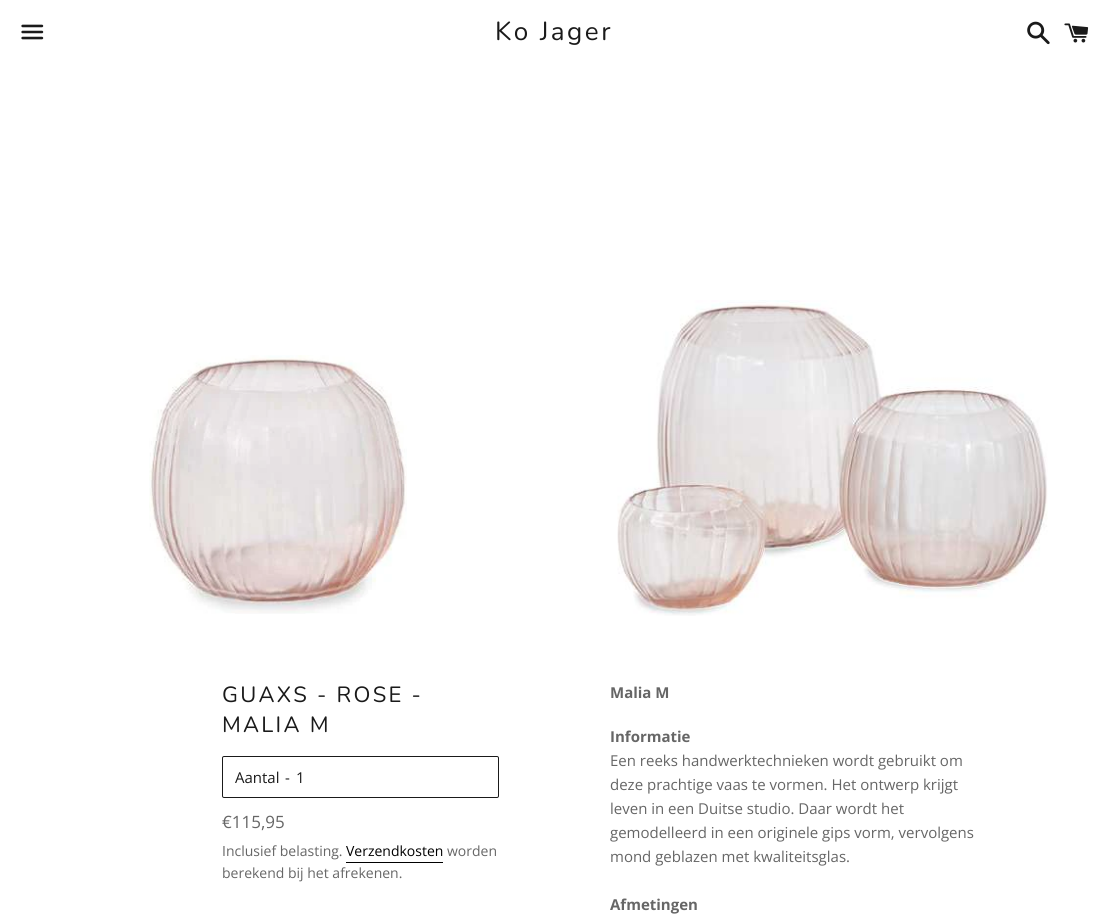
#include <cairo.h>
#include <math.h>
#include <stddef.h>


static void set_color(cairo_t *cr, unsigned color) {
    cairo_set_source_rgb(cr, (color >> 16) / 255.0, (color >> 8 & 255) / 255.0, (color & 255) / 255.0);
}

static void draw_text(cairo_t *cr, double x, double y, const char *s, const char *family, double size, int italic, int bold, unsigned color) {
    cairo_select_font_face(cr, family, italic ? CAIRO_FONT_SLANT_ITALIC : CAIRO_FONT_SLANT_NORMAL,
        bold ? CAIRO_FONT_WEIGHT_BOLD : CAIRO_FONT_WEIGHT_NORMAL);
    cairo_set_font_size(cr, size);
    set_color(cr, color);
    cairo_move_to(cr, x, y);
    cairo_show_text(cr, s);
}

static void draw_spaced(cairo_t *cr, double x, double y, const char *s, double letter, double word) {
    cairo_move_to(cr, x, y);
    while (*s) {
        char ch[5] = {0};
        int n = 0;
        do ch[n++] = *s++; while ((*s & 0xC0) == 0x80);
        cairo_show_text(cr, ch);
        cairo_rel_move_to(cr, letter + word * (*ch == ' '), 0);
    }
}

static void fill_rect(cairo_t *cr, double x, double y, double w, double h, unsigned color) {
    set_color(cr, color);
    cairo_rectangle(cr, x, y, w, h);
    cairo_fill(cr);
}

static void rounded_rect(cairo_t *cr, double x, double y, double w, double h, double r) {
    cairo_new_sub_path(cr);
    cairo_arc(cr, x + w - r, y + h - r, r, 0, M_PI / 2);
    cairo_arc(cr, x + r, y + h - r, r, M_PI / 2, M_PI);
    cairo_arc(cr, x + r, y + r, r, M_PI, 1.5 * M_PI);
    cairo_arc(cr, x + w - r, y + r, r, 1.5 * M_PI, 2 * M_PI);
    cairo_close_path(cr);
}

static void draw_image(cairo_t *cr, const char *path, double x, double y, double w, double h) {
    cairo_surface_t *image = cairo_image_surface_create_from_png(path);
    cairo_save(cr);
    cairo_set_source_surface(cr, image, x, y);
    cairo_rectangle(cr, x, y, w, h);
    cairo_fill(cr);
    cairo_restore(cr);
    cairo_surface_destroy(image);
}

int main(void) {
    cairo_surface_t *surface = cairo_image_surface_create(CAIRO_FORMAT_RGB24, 1109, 920);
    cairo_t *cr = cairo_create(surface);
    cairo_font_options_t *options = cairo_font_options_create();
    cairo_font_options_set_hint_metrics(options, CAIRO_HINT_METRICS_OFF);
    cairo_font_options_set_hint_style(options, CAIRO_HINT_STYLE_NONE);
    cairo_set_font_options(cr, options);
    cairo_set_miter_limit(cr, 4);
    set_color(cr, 0xFFFFFF);
    cairo_paint(cr);
    draw_image(cr, "assets/img1.png", 21, 24, 23, 16);
    cairo_select_font_face(cr, "Nunito", CAIRO_FONT_SLANT_NORMAL, CAIRO_FONT_WEIGHT_NORMAL);
    cairo_set_font_size(cr, 26);
    set_color(cr, 0x1A1A1A);
    draw_spaced(cr, 495, 40, "Ko Jager", 2.5, 0);
    draw_image(cr, "assets/img2.png", 1027, 21, 23, 24);
    draw_image(cr, "assets/img3.png", 1064, 23, 25, 20);
    draw_image(cr, "assets/img4.png", 149, 355, 258, 259);
    draw_image(cr, "assets/img5.png", 617, 300, 431, 316);
    cairo_set_font_size(cr, 22);
    draw_spaced(cr, 222, 702, "GUAXS - ROSE -", 2.25, 0);
    draw_spaced(cr, 222, 732, "MALIA M", 2.25, 0);
    rounded_rect(cr, 222.5, 756.5, 276, 41, 1.5);
    cairo_set_line_width(cr, 1);
    cairo_stroke(cr);
    draw_text(cr, 235, 783, "Aantal", "Open Sans", 15, 0, 0, 0x1A1A1A);
    draw_text(cr, 285, 783, "-", "Open Sans", 15, 0, 0, 0x1A1A1A);
    draw_text(cr, 296, 783, "1", "Open Sans", 15, 0, 0, 0x1A1A1A);
    draw_text(cr, 222, 828, "€115,95", "Open Sans", 17, 0, 0, 0x666666);
    draw_text(cr, 222, 856, "Inclusief belasting.", "Open Sans", 14, 0, 0, 0x666666);
    draw_text(cr, 346, 856, "Verzendkosten", "Open Sans", 14, 0, 0, 0x000000);
    fill_rect(cr, 346, 862, 97, 1, 0x000000);
    draw_text(cr, 447, 856, "worden", "Open Sans", 14, 0, 0, 0x666666);
    draw_text(cr, 222, 878, "berekend bij het afrekenen.", "Open Sans", 14, 0, 0, 0x666666);
    draw_text(cr, 610, 698, "Malia M", "Open Sans", 15, 0, 1, 0x666666);
    draw_text(cr, 610, 742, "Informatie", "Open Sans", 15, 0, 1, 0x666666);
    draw_text(cr, 610, 766, "Een reeks handwerktechnieken wordt gebruikt om", "Open Sans", 15, 0, 0, 0x666666);
    draw_text(cr, 610, 790, "deze prachtige vaas te vormen. Het ontwerp krijgt", "Open Sans", 15, 0, 0, 0x666666);
    draw_text(cr, 610, 814, "leven in een Duitse studio. Daar wordt het", "Open Sans", 15, 0, 0, 0x666666);
    draw_text(cr, 610, 838, "gemodelleerd in een originele gips vorm, vervolgens", "Open Sans", 15, 0, 0, 0x666666);
    draw_text(cr, 610, 862, "mond geblazen met kwaliteitsglas.", "Open Sans", 15, 0, 0, 0x666666);
    draw_text(cr, 610, 910, "Afmetingen", "Open Sans", 15, 0, 1, 0x666666);
    cairo_surface_write_to_png(surface, "output.png");
    cairo_font_options_destroy(options);
    cairo_destroy(cr);
    cairo_surface_destroy(surface);
    return 0;
}
